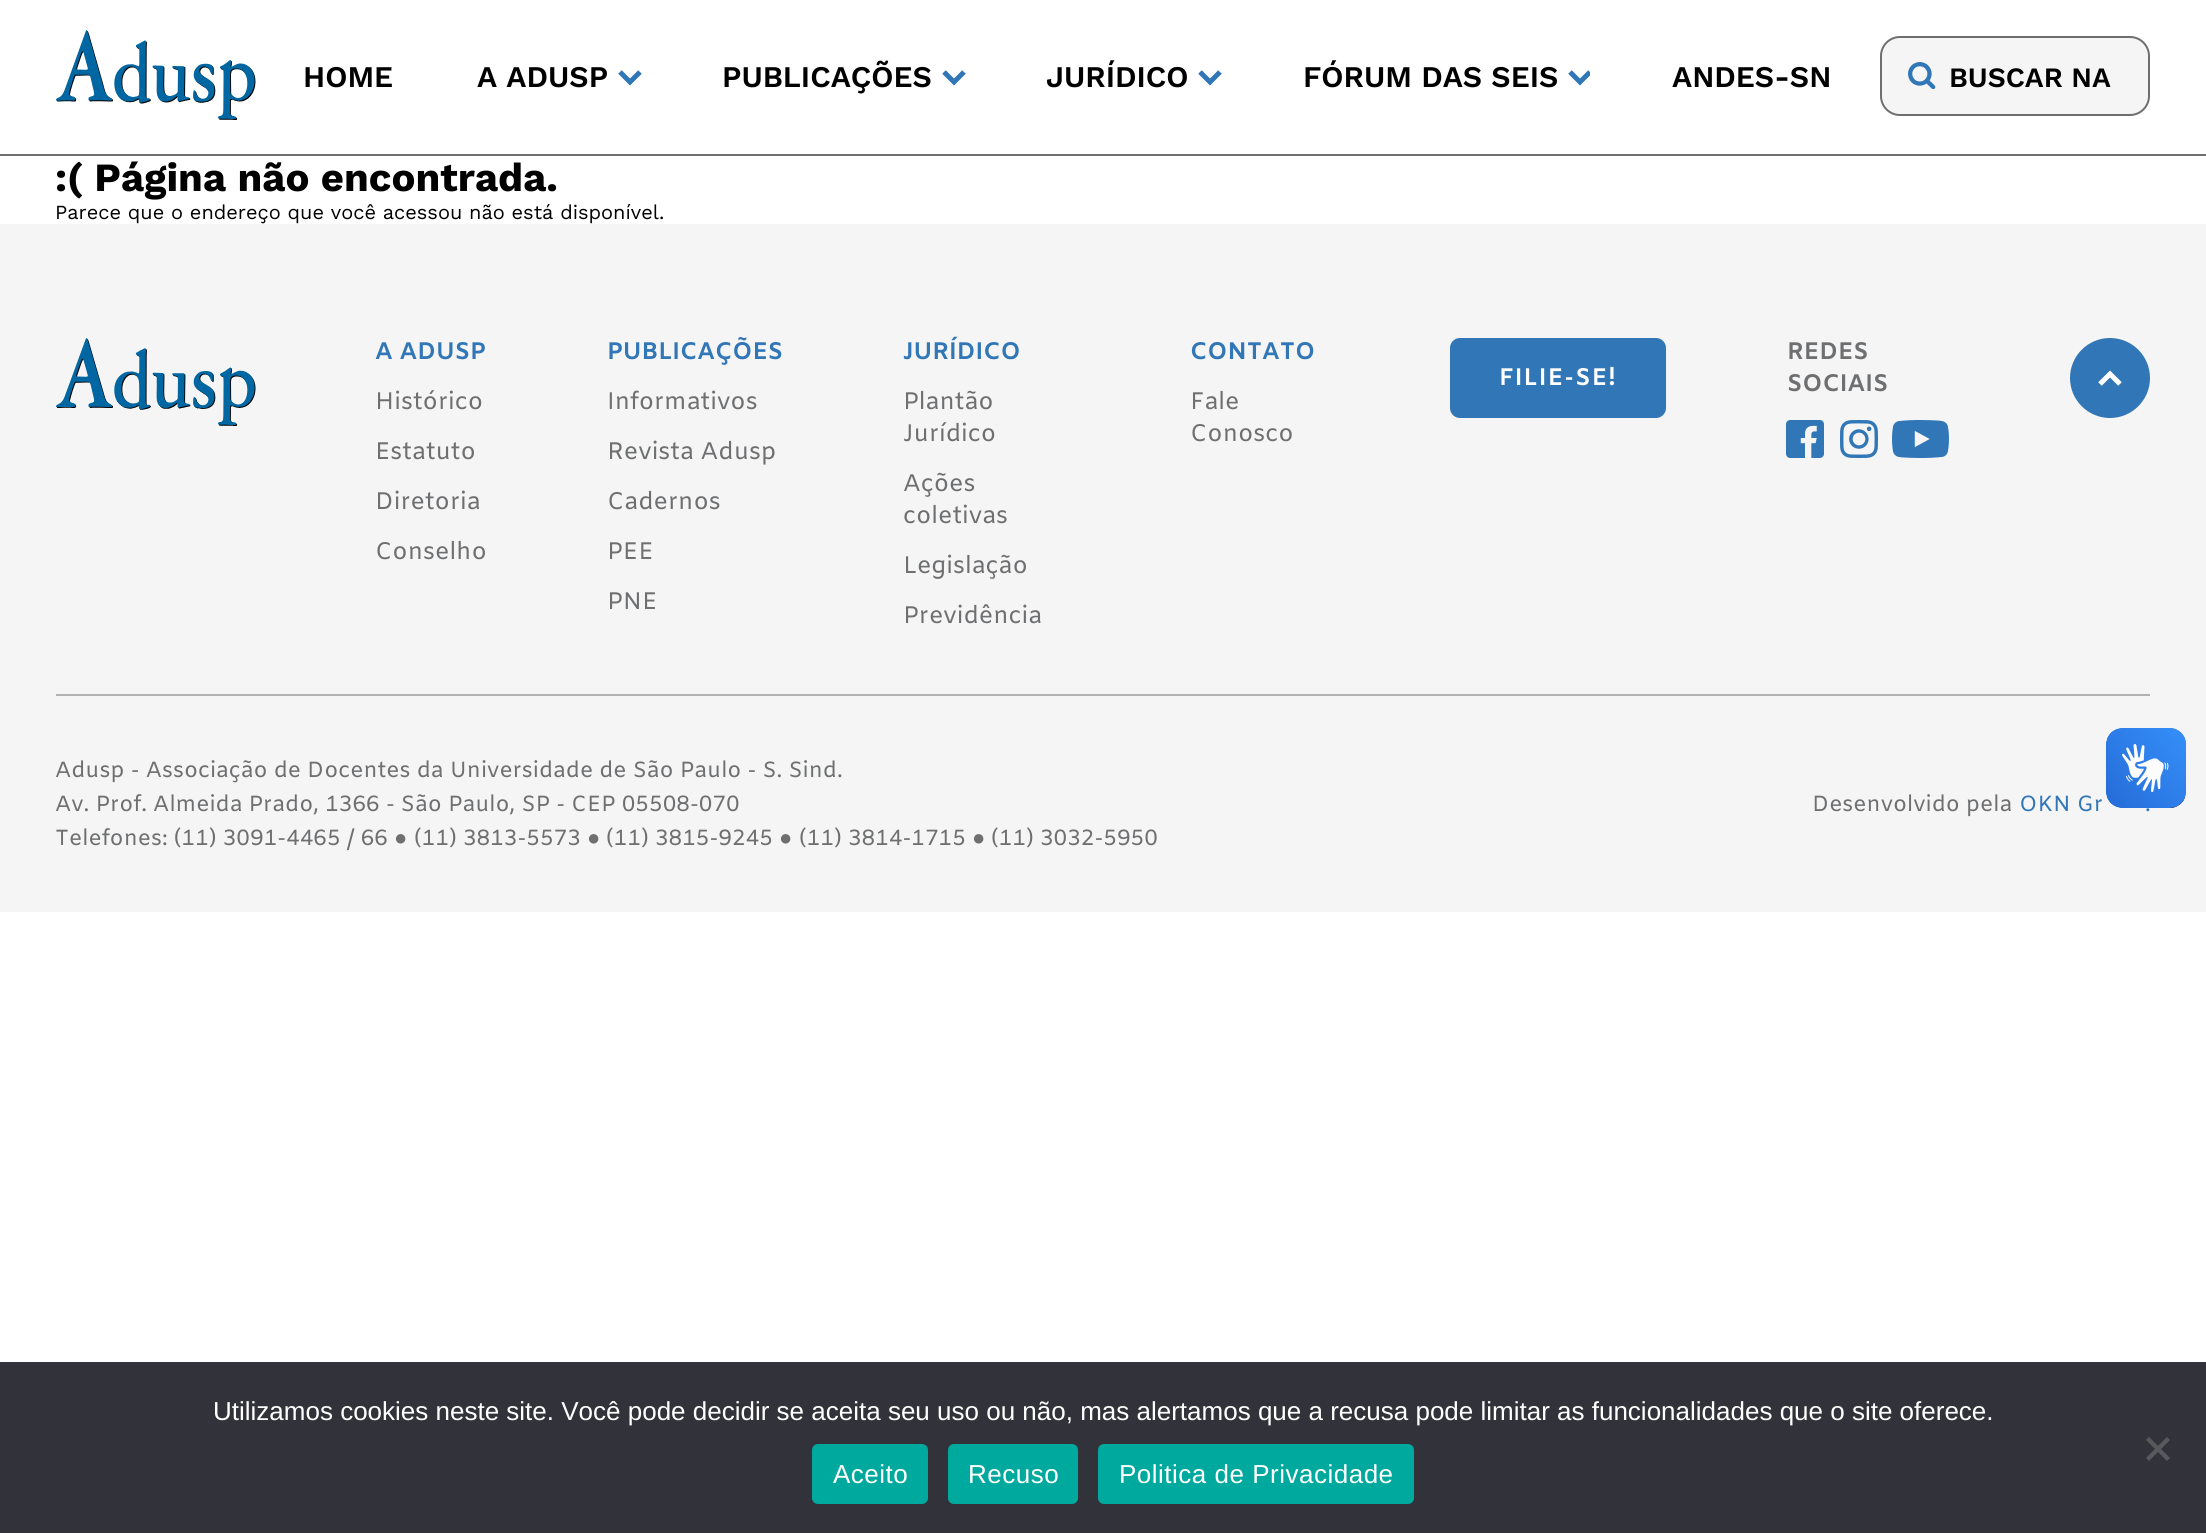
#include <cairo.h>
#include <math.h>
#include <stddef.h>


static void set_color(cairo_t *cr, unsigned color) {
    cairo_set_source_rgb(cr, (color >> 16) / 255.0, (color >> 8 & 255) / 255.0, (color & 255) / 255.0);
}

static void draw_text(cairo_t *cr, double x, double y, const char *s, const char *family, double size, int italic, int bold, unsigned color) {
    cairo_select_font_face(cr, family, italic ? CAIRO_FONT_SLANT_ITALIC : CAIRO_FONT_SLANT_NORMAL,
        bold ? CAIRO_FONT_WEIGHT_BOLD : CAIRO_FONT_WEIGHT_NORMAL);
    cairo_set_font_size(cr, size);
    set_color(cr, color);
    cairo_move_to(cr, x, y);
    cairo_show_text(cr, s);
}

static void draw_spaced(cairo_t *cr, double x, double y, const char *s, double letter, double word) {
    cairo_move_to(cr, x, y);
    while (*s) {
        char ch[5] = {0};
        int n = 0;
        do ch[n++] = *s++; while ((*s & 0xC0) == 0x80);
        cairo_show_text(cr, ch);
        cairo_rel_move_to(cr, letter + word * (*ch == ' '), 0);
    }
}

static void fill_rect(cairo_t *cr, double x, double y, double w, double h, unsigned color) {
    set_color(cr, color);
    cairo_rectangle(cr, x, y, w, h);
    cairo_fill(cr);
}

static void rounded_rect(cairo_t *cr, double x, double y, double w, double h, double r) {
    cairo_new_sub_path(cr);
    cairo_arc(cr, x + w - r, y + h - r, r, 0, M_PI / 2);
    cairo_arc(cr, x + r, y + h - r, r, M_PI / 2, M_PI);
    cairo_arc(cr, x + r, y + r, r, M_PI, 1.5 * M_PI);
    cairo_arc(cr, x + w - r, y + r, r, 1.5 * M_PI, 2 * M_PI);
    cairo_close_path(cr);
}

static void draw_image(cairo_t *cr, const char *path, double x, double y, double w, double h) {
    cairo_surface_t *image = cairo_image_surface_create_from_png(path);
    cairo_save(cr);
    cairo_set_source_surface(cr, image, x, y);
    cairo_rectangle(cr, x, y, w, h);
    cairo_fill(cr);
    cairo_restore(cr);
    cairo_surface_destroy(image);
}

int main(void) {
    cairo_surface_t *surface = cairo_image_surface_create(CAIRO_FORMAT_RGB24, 2206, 1533);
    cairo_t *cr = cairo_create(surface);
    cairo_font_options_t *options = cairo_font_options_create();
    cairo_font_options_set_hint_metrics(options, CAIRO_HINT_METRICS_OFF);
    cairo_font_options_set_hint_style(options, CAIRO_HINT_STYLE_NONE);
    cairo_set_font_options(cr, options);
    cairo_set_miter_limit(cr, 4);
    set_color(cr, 0xFFFFFF);
    cairo_paint(cr);
    fill_rect(cr, 0, 154, 2206, 2, 0x6E6F71);
    draw_image(cr, "assets/img1.png", 56, 30, 200, 90);
    draw_text(cr, 303, 87, "HOME", "Work Sans SemiBold", 30, 0, 0, 0x000000);
    draw_text(cr, 477, 87, "A ADUSP", "Work Sans SemiBold", 30, 0, 0, 0x000000);
    draw_image(cr, "assets/img2.png", 618, 70, 24, 16);
    draw_text(cr, 722, 87, "PUBLICAÇÕES", "Work Sans SemiBold", 30, 0, 0, 0x000000);
    draw_image(cr, "assets/img2.png", 942, 70, 24, 16);
    draw_text(cr, 1046, 87, "JURÍDICO", "Work Sans SemiBold", 30, 0, 0, 0x000000);
    draw_image(cr, "assets/img2.png", 1198, 70, 24, 16);
    draw_text(cr, 1303, 87, "FÓRUM DAS SEIS", "Work Sans SemiBold", 30, 0, 0, 0x000000);
    draw_image(cr, "assets/img3.png", 1568, 70, 22, 16);
    draw_text(cr, 1672, 87, "ANDES-SN", "Work Sans SemiBold", 30, 0, 0, 0x000000);
    set_color(cr, 0xF5F5F5);
    rounded_rect(cr, 1881, 37, 268, 78, 19);
    cairo_fill_preserve(cr);
    set_color(cr, 0x6E6F71);
    cairo_stroke(cr);
    draw_image(cr, "assets/img4.png", 1908, 62, 28, 27);
    draw_text(cr, 1949, 87, "BUSCAR NA", "Work Sans SemiBold", 28, 0, 0, 0x000000);
    draw_text(cr, 55, 191, ":( Página não encontrada.", "Work Sans", 40, 0, 1, 0x000000);
    draw_text(cr, 55, 219, "Parece que o endereço que você acessou não está disponível.", "Work Sans", 20, 0, 0, 0x000000);
    fill_rect(cr, 0, 224, 2206, 688, 0xF5F5F5);
    fill_rect(cr, 56, 694, 2094, 2, 0xB2B2B3);
    draw_image(cr, "assets/img5.png", 56, 338, 200, 88);
    draw_text(cr, 375, 359, "A ADUSP", "Amiko", 24, 0, 1, 0x3176B6);
    draw_text(cr, 375, 409, "Histórico", "Amiko", 24, 0, 0, 0x6E6F71);
    draw_text(cr, 375, 459, "Estatuto", "Amiko", 24, 0, 0, 0x6E6F71);
    draw_text(cr, 375, 509, "Diretoria", "Amiko", 24, 0, 0, 0x6E6F71);
    draw_text(cr, 375, 559, "Conselho", "Amiko", 24, 0, 0, 0x6E6F71);
    draw_text(cr, 607, 359, "PUBLICAÇÕES", "Amiko", 24, 0, 1, 0x3176B6);
    draw_text(cr, 607, 409, "Informativos", "Amiko", 24, 0, 0, 0x6E6F71);
    draw_text(cr, 607, 459, "Revista Adusp", "Amiko", 24, 0, 0, 0x6E6F71);
    draw_text(cr, 607, 509, "Cadernos", "Amiko", 24, 0, 0, 0x6E6F71);
    draw_text(cr, 607, 559, "PEE", "Amiko", 24, 0, 0, 0x6E6F71);
    draw_text(cr, 607, 609, "PNE", "Amiko", 24, 0, 0, 0x6E6F71);
    draw_text(cr, 903, 359, "JURÍDICO", "Amiko", 24, 0, 1, 0x3176B6);
    draw_text(cr, 903, 409, "Plantão", "Amiko", 24, 0, 0, 0x6E6F71);
    draw_text(cr, 903, 441, "Jurídico", "Amiko", 24, 0, 0, 0x6E6F71);
    draw_text(cr, 903, 491, "Ações", "Amiko", 24, 0, 0, 0x6E6F71);
    draw_text(cr, 903, 523, "coletivas", "Amiko", 24, 0, 0, 0x6E6F71);
    draw_text(cr, 903, 573, "Legislação", "Amiko", 24, 0, 0, 0x6E6F71);
    draw_text(cr, 903, 623, "Previdência", "Amiko", 24, 0, 0, 0x6E6F71);
    draw_text(cr, 1190, 359, "CONTATO", "Amiko", 24, 0, 1, 0x3176B6);
    draw_text(cr, 1190, 409, "Fale", "Amiko", 24, 0, 0, 0x6E6F71);
    draw_text(cr, 1190, 441, "Conosco", "Amiko", 24, 0, 0, 0x6E6F71);
    set_color(cr, 0x3176B6);
    rounded_rect(cr, 1450, 338, 216, 80, 10);
    cairo_fill(cr);
    cairo_select_font_face(cr, "Amiko", CAIRO_FONT_SLANT_NORMAL, CAIRO_FONT_WEIGHT_BOLD);
    set_color(cr, 0xFFFFFF);
    draw_spaced(cr, 1499, 385, "FILIE-SE!", 1.25, 0);
    draw_text(cr, 1787, 359, "REDES", "Amiko", 24, 0, 1, 0x6E6F71);
    draw_text(cr, 1787, 391, "SOCIAIS", "Amiko", 24, 0, 1, 0x6E6F71);
    draw_image(cr, "assets/img6.png", 1786, 420, 38, 38);
    draw_image(cr, "assets/img7.png", 1840, 420, 38, 38);
    draw_image(cr, "assets/img8.png", 1892, 420, 57, 38);
    set_color(cr, 0x3176B6);
    cairo_arc(cr, 2110, 378, 40, 0, 2 * M_PI);
    cairo_fill(cr);
    draw_image(cr, "assets/img9.png", 2098, 370, 24, 16);
    draw_text(cr, 55, 777, "Adusp - Associação de Docentes da Universidade de São Paulo - S. Sind.", "Amiko", 22, 0, 0, 0x6E6F71);
    draw_text(cr, 55, 811, "Av. Prof. Almeida Prado, 1366 - São Paulo, SP - CEP 05508-070", "Amiko", 22, 0, 0, 0x6E6F71);
    draw_text(cr, 55, 845, "Telefones: (11) 3091-4465 / 66", "Amiko", 22, 0, 0, 0x6E6F71);
    draw_text(cr, 394, 845, "●", "Liberation Sans", 22, 0, 0, 0x6E6F71);
    draw_text(cr, 414, 845, "(11) 3813-5573", "Amiko", 22, 0, 0, 0x6E6F71);
    draw_text(cr, 587, 845, "●", "Liberation Sans", 22, 0, 0, 0x6E6F71);
    draw_text(cr, 606, 845, "(11) 3815-9245", "Amiko", 22, 0, 0, 0x6E6F71);
    draw_text(cr, 779, 845, "●", "Liberation Sans", 22, 0, 0, 0x6E6F71);
    draw_text(cr, 799, 845, "(11) 3814-1715", "Amiko", 22, 0, 0, 0x6E6F71);
    draw_text(cr, 972, 845, "●", "Liberation Sans", 22, 0, 0, 0x6E6F71);
    draw_text(cr, 991, 845, "(11) 3032-5950", "Amiko", 22, 0, 0, 0x6E6F71);
    draw_text(cr, 1812, 811, "Desenvolvido pela", "Amiko", 22, 0, 0, 0x6E6F71);
    draw_text(cr, 2019, 811, "OKN Gr", "Amiko", 22, 0, 0, 0x3176B6);
    draw_text(cr, 2145, 811, ".", "Amiko", 22, 0, 0, 0x3176B6);
    draw_image(cr, "assets/img10.png", 2106, 728, 80, 80);
    draw_image(cr, "assets/img11.png", 2106, 728, 80, 80);
    fill_rect(cr, 0, 1362, 2206, 171, 0x32323A);
    draw_text(cr, 213, 1420, "Utilizamos cookies neste site. Você pode decidir se aceita seu uso ou não, mas alertamos que a recusa pode limitar as funcionalidades que o site oferece.", "Liberation Sans", 26, 0, 0, 0xFFFFFF);
    set_color(cr, 0x59595D);
    cairo_new_path(cr);
    cairo_move_to(cr, 2167, 1437);
    cairo_line_to(cr, 2170, 1440);
    cairo_line_to(cr, 2149, 1461);
    cairo_line_to(cr, 2146, 1458);
    cairo_close_path(cr);
    cairo_fill(cr);
    cairo_new_path(cr);
    cairo_move_to(cr, 2146, 1440);
    cairo_line_to(cr, 2149, 1437);
    cairo_line_to(cr, 2170, 1458);
    cairo_line_to(cr, 2167, 1461);
    cairo_close_path(cr);
    cairo_fill(cr);
    set_color(cr, 0x00A99D);
    rounded_rect(cr, 812, 1444, 116, 60, 6);
    cairo_fill(cr);
    set_color(cr, 0xFFFFFF);
    draw_spaced(cr, 833, 1483, "Aceito", 0.5, 0);
    set_color(cr, 0x00A99D);
    rounded_rect(cr, 948, 1444, 130, 60, 6);
    cairo_fill(cr);
    set_color(cr, 0xFFFFFF);
    draw_spaced(cr, 968, 1483, "Recuso", 0.5, 0);
    set_color(cr, 0x00A99D);
    rounded_rect(cr, 1098, 1444, 316, 60, 6);
    cairo_fill(cr);
    set_color(cr, 0xFFFFFF);
    draw_spaced(cr, 1119, 1483, "Politica de Privacidade", 0.5, 0);
    cairo_surface_write_to_png(surface, "output.png");
    cairo_font_options_destroy(options);
    cairo_destroy(cr);
    cairo_surface_destroy(surface);
    return 0;
}
